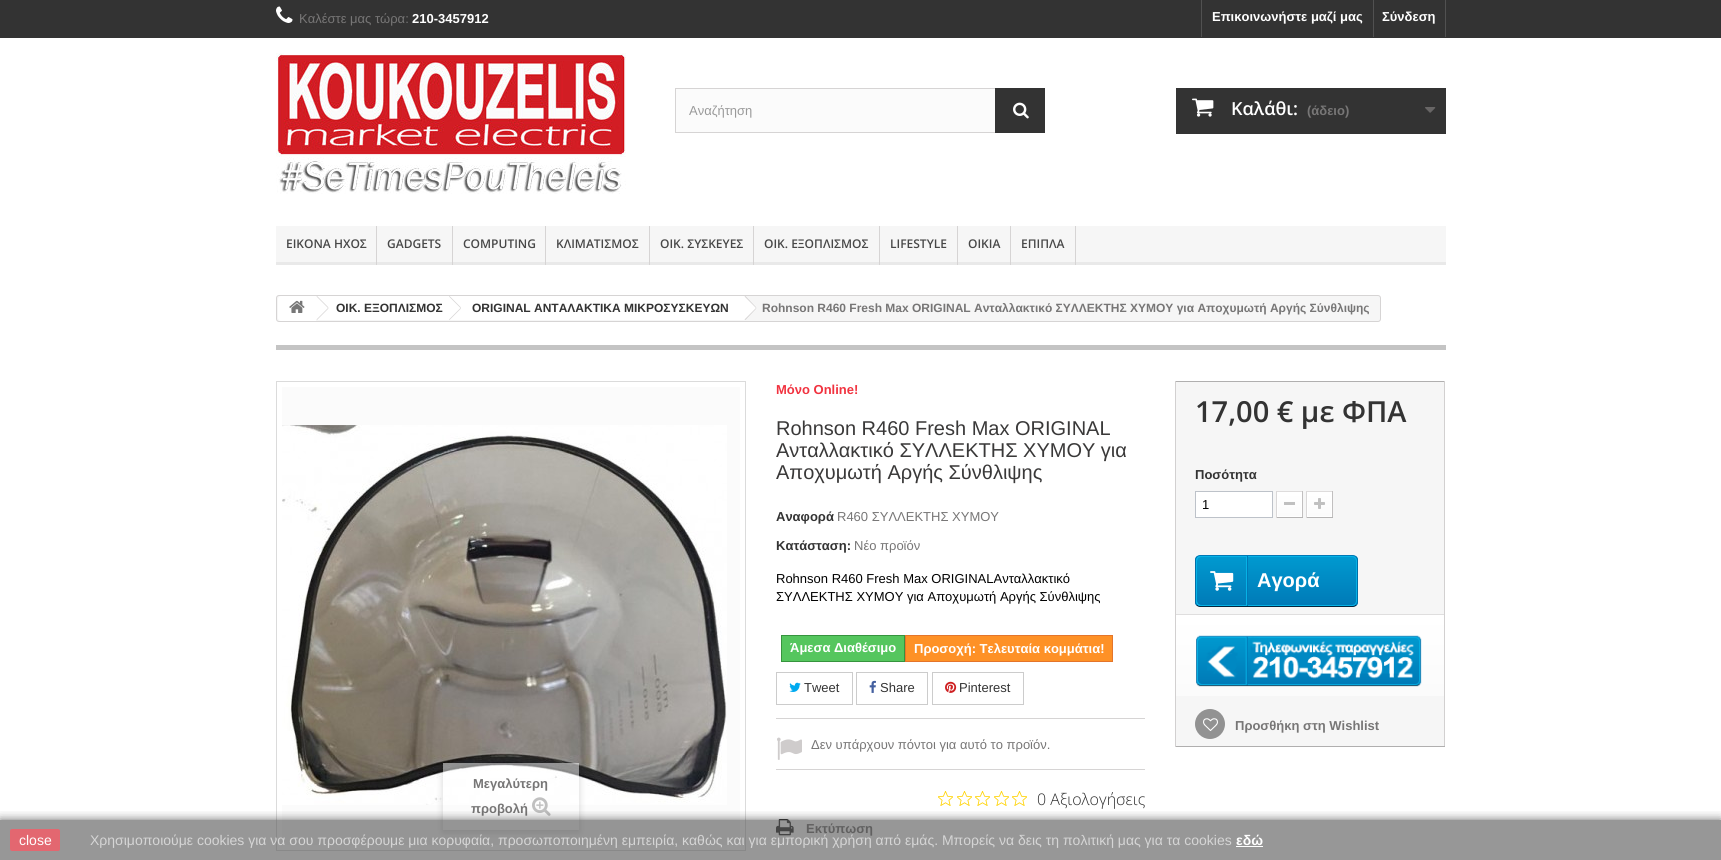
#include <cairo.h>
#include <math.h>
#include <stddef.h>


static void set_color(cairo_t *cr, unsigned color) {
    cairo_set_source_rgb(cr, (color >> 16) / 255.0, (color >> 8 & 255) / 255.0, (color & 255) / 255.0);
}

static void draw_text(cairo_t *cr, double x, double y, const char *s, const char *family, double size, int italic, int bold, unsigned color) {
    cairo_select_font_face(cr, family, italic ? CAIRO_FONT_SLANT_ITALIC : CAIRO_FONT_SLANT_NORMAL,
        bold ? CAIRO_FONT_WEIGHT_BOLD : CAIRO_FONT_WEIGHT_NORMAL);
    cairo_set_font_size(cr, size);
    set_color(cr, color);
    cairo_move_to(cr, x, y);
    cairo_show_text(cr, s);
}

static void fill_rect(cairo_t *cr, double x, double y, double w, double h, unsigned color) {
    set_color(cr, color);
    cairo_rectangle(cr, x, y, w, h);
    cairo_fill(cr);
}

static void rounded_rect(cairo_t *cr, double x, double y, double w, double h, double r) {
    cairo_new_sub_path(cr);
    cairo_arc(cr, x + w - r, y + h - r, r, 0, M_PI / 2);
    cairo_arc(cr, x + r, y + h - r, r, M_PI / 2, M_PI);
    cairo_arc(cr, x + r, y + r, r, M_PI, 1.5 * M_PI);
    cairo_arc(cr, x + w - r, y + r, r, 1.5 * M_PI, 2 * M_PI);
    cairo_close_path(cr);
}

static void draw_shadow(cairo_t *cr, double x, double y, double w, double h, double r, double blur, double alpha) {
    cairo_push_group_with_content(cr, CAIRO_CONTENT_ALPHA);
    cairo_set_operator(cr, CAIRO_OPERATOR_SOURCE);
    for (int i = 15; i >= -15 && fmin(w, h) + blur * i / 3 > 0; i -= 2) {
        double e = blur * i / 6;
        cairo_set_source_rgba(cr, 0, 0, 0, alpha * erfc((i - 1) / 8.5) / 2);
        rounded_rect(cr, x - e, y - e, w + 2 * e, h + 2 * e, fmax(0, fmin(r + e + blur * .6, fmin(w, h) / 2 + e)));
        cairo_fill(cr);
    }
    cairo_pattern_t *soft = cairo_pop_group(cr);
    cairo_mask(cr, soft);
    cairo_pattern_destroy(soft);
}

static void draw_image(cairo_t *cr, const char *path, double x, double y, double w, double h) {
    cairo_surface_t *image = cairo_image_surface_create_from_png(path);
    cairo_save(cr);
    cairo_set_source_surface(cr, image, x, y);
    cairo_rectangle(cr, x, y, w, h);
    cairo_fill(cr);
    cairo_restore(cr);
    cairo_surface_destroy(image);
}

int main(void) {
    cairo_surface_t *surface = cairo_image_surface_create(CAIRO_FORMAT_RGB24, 1721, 860);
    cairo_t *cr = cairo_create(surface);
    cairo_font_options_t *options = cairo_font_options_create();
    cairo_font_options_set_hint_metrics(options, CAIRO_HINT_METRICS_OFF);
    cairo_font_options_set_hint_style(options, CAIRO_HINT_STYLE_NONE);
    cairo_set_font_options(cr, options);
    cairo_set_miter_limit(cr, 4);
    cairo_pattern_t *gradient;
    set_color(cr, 0xFFFFFF);
    cairo_paint(cr);
    fill_rect(cr, 0, 0, 1721, 38, 0x333333);
    draw_image(cr, "assets/img1.png", 276, 6, 17, 17);
    draw_text(cr, 299, 23, "Καλέστε μας τώρα:", "Liberation Sans", 13, 0, 0, 0x777676);
    draw_text(cr, 412, 23, "210-3457912", "Liberation Sans", 13, 0, 1, 0xFFFFFF);
    fill_rect(cr, 1201, 0, 1, 37, 0x515151);
    draw_text(cr, 1212, 21, "Επικοινωνήστε μαζί μας", "Liberation Sans", 13, 0, 1, 0xFFFFFF);
    fill_rect(cr, 1445, 0, 1, 37, 0x515151);
    fill_rect(cr, 1373, 0, 1, 37, 0x515151);
    draw_text(cr, 1382, 21, "Σύνδεση", "Liberation Sans", 13, 0, 1, 0xFFFFFF);
    draw_image(cr, "assets/img2.png", 276, 53, 350, 141);
    fill_rect(cr, 676, 89, 319, 43, 0xFBFBFB);
    cairo_rectangle(cr, 675.5, 88.5, 369, 44);
    set_color(cr, 0xD6D4D4);
    cairo_set_line_width(cr, 1);
    cairo_stroke(cr);
    draw_text(cr, 689, 115, "Αναζήτηση", "Liberation Sans", 13, 0, 0, 0x999999);
    fill_rect(cr, 995, 88, 50, 45, 0x333333);
    draw_image(cr, "assets/img3.png", 1013, 102, 16, 17);
    fill_rect(cr, 1176, 88, 270, 46, 0x333333);
    draw_image(cr, "assets/img4.png", 1192, 98, 22, 19);
    draw_text(cr, 1231, 115, "Καλάθι:", "Open Sans SemiBold", 18, 0, 0, 0xFFFFFF);
    draw_text(cr, 1307, 115, "(άδειο)", "Liberation Sans", 13, 0, 1, 0x777676);
    draw_image(cr, "assets/img5.png", 1425, 107, 11, 6);
    fill_rect(cr, 276, 226, 1170, 36, 0xF6F6F6);
    fill_rect(cr, 276, 262, 1170, 3, 0xE9E9E9);
    fill_rect(cr, 376, 226, 1, 39, 0xD6D4D4);
    draw_text(cr, 286, 248, "ΕΙΚΟΝΑ ΗΧΟΣ", "Open Sans SemiBold", 12, 0, 0, 0x484848);
    fill_rect(cr, 452, 226, 1, 39, 0xD6D4D4);
    draw_text(cr, 387, 248, "GADGETS", "Open Sans SemiBold", 12, 0, 0, 0x484848);
    fill_rect(cr, 545, 226, 1, 39, 0xD6D4D4);
    draw_text(cr, 463, 248, "COMPUTING", "Open Sans SemiBold", 12, 0, 0, 0x484848);
    fill_rect(cr, 649, 226, 1, 39, 0xD6D4D4);
    draw_text(cr, 556, 248, "ΚΛΙΜΑΤΙΣΜΟΣ", "Open Sans SemiBold", 12, 0, 0, 0x484848);
    fill_rect(cr, 753, 226, 1, 39, 0xD6D4D4);
    draw_text(cr, 660, 248, "ΟΙΚ. ΣΥΣΚΕΥΕΣ", "Open Sans SemiBold", 12, 0, 0, 0x484848);
    fill_rect(cr, 879, 226, 1, 39, 0xD6D4D4);
    draw_text(cr, 764, 248, "ΟΙΚ. ΕΞΟΠΛΙΣΜΟΣ", "Open Sans SemiBold", 12, 0, 0, 0x484848);
    fill_rect(cr, 957, 226, 1, 39, 0xD6D4D4);
    draw_text(cr, 890, 248, "LIFESTYLE", "Open Sans SemiBold", 12, 0, 0, 0x484848);
    fill_rect(cr, 1010, 226, 1, 39, 0xD6D4D4);
    draw_text(cr, 968, 248, "ΟΙΚΙΑ", "Open Sans SemiBold", 12, 0, 0, 0x484848);
    fill_rect(cr, 1075, 226, 1, 39, 0xD6D4D4);
    draw_text(cr, 1021, 248, "ΕΠΙΠΛΑ", "Open Sans SemiBold", 12, 0, 0, 0x484848);
    set_color(cr, 0xF6F6F6);
    rounded_rect(cr, 276.5, 295.5, 1104, 26, 2.5);
    cairo_fill_preserve(cr);
    set_color(cr, 0xD6D4D4);
    cairo_stroke(cr);
    set_color(cr, 0xFFFFFF);
    cairo_new_path(cr);
    cairo_move_to(cr, 281, 296);
    cairo_line_to(cr, 316, 296);
    cairo_line_to(cr, 316, 321);
    cairo_line_to(cr, 281, 321);
    cairo_curve_to(cr, 279.5, 321, 278, 319.5, 278, 318);
    cairo_line_to(cr, 278, 299);
    cairo_curve_to(cr, 278, 297.5, 279.5, 296, 281, 296);
    cairo_close_path(cr);
    cairo_fill(cr);
    draw_image(cr, "assets/img6.png", 289, 300, 16, 13);
    fill_rect(cr, 316, 296, 134, 24, 0xFFFFFF);
    set_color(cr, 0xD6D4D4);
    cairo_new_path(cr);
    cairo_move_to(cr, 317, 296);
    cairo_line_to(cr, 328.5, 307.5);
    cairo_line_to(cr, 328, 308);
    cairo_line_to(cr, 316.5, 296.5);
    cairo_close_path(cr);
    cairo_move_to(cr, 328, 308);
    cairo_line_to(cr, 328.5, 308.5);
    cairo_line_to(cr, 317, 320);
    cairo_line_to(cr, 316.5, 319.5);
    cairo_close_path(cr);
    cairo_fill(cr);
    draw_text(cr, 336, 312, "ΟΙΚ. ΕΞΟΠΛΙΣΜΟΣ", "Liberation Sans", 12, 0, 1, 0x333333);
    set_color(cr, 0xFFFFFF);
    cairo_new_path(cr);
    cairo_move_to(cr, 460.5, 296.5);
    cairo_line_to(cr, 470.5, 306.5);
    cairo_curve_to(cr, 471, 307.5, 471, 308.5, 470.5, 309.5);
    cairo_line_to(cr, 460.5, 319.5);
    cairo_curve_to(cr, 459.5, 320, 458.5, 320, 457.5, 319.5);
    cairo_line_to(cr, 447.5, 309.5);
    cairo_curve_to(cr, 447, 308.5, 447, 307.5, 447.5, 306.5);
    cairo_line_to(cr, 457.5, 296.5);
    cairo_curve_to(cr, 458.5, 296, 459.5, 296, 460.5, 296.5);
    cairo_close_path(cr);
    cairo_fill(cr);
    fill_rect(cr, 450, 296, 294, 24, 0xFFFFFF);
    set_color(cr, 0xD6D4D4);
    cairo_new_path(cr);
    cairo_move_to(cr, 449.5, 296);
    cairo_line_to(cr, 461, 307.5);
    cairo_line_to(cr, 460.5, 308);
    cairo_line_to(cr, 449, 296.5);
    cairo_close_path(cr);
    cairo_move_to(cr, 460.5, 308);
    cairo_line_to(cr, 461, 308.5);
    cairo_line_to(cr, 449.5, 320);
    cairo_line_to(cr, 449, 319.5);
    cairo_close_path(cr);
    cairo_fill(cr);
    draw_text(cr, 472, 312, "ORIGINAL ΑΝΤΑΛΑΚΤΙΚΑ ΜΙΚΡΟΣΥΣΚΕΥΩΝ", "Liberation Sans", 12, 0, 1, 0x333333);
    set_color(cr, 0xFFFFFF);
    cairo_new_path(cr);
    cairo_move_to(cr, 746, 296.5);
    cairo_line_to(cr, 756, 306.5);
    cairo_curve_to(cr, 757, 307.5, 757, 308.5, 756, 309.5);
    cairo_line_to(cr, 746, 319.5);
    cairo_curve_to(cr, 745.5, 320, 744, 320, 743.5, 319.5);
    cairo_line_to(cr, 733.5, 309.5);
    cairo_curve_to(cr, 732.5, 308.5, 732.5, 307.5, 733.5, 306.5);
    cairo_line_to(cr, 743.5, 296.5);
    cairo_curve_to(cr, 744, 296, 745.5, 296, 746, 296.5);
    cairo_close_path(cr);
    cairo_fill(cr);
    set_color(cr, 0xD6D4D4);
    cairo_new_path(cr);
    cairo_move_to(cr, 745.5, 296);
    cairo_line_to(cr, 756.5, 307.5);
    cairo_line_to(cr, 756, 308);
    cairo_line_to(cr, 744.5, 296.5);
    cairo_close_path(cr);
    cairo_move_to(cr, 756, 308);
    cairo_line_to(cr, 756.5, 308.5);
    cairo_line_to(cr, 745.5, 320);
    cairo_line_to(cr, 744.5, 319.5);
    cairo_close_path(cr);
    cairo_fill(cr);
    draw_text(cr, 762, 312, "Rohnson R460 Fresh Max ORIGINAL Ανταλλακτικό ΣΥΛΛΕΚΤΗΣ ΧΥΜΟΥ για Αποχυμωτή Αργής Σύνθλιψης", "Liberation Sans", 12, 0, 1, 0x777676);
    fill_rect(cr, 276, 345, 1170, 5, 0xC4C4C4);
    draw_text(cr, 776, 394, "Μόνο Online!", "Liberation Sans", 13, 0, 1, 0xF13340);
    draw_text(cr, 776, 435, "Rohnson R460 Fresh Max ORIGINAL", "Liberation Sans", 20, 0, 0, 0x3A3939);
    draw_text(cr, 776, 457, "Ανταλλακτικό ΣΥΛΛΕΚΤΗΣ ΧΥΜΟΥ για", "Liberation Sans", 20, 0, 0, 0x3A3939);
    draw_text(cr, 776, 479, "Αποχυμωτή Αργής Σύνθλιψης", "Liberation Sans", 20, 0, 0, 0x3A3939);
    draw_text(cr, 776, 521, "Αναφορά", "Liberation Sans", 13, 0, 1, 0x333333);
    draw_text(cr, 837, 521, "R460 ΣΥΛΛΕΚΤΗΣ ΧΥΜΟΥ", "Liberation Sans", 13, 0, 0, 0x777676);
    draw_text(cr, 776, 550, "Κατάσταση:", "Liberation Sans", 13, 0, 1, 0x333333);
    draw_text(cr, 854, 550, "Νέο προϊόν", "Liberation Sans", 13, 0, 0, 0x777676);
    draw_text(cr, 776, 583, "Rohnson R460 Fresh Max ORIGINALΑνταλλακτικό", "Liberation Sans", 13, 0, 0, 0x000000);
    draw_text(cr, 776, 601, "ΣΥΛΛΕΚΤΗΣ ΧΥΜΟΥ για Αποχυμωτή Αργής Σύνθλιψης", "Liberation Sans", 13, 0, 0, 0x000000);
    set_color(cr, 0x55C65E);
    cairo_rectangle(cr, 781.5, 635.5, 123, 26);
    cairo_fill_preserve(cr);
    set_color(cr, 0x36943E);
    cairo_stroke(cr);
    draw_text(cr, 790, 652, "Άμεσα Διαθέσιμο", "Liberation Sans", 13, 0, 1, 0xFFFFFF);
    set_color(cr, 0xFE9126);
    cairo_rectangle(cr, 905.5, 635.5, 207, 26);
    cairo_fill_preserve(cr);
    set_color(cr, 0xE4752B);
    cairo_stroke(cr);
    draw_text(cr, 914, 653, "Προσοχή: Τελευταία κομμάτια!", "Liberation Sans", 13, 0, 1, 0xFFFFFF);
    cairo_rectangle(cr, 776.5, 672.5, 76, 32);
    set_color(cr, 0xCCCCCC);
    cairo_stroke(cr);
    draw_image(cr, "assets/img7.png", 789, 682, 12, 10);
    draw_text(cr, 804, 692, "Tweet", "Liberation Sans", 13, 0, 0, 0x333333);
    cairo_rectangle(cr, 856.5, 672.5, 71, 32);
    set_color(cr, 0xCCCCCC);
    cairo_stroke(cr);
    draw_image(cr, "assets/img8.png", 869, 680, 7, 13);
    draw_text(cr, 880, 692, "Share", "Liberation Sans", 13, 0, 0, 0x333333);
    cairo_rectangle(cr, 932.5, 672.5, 91, 32);
    set_color(cr, 0xCCCCCC);
    cairo_stroke(cr);
    draw_image(cr, "assets/img9.png", 945, 681, 12, 12);
    draw_text(cr, 959, 692, "Pinterest", "Liberation Sans", 13, 0, 0, 0x333333);
    fill_rect(cr, 776, 718, 369, 1, 0xD6D4D4);
    fill_rect(cr, 776, 769, 369, 1, 0xD6D4D4);
    draw_image(cr, "assets/img10.png", 777, 737, 25, 23);
    draw_text(cr, 811, 749, "Δεν υπάρχουν πόντοι για αυτό το προϊόν.", "Liberation Sans", 13, 0, 0, 0x777676);
    draw_image(cr, "assets/img11.png", 938, 791, 15, 15);
    draw_image(cr, "assets/img11.png", 957, 791, 15, 15);
    draw_image(cr, "assets/img11.png", 975, 791, 15, 15);
    draw_image(cr, "assets/img11.png", 994, 791, 15, 15);
    draw_image(cr, "assets/img11.png", 1012, 791, 15, 15);
    draw_text(cr, 1037, 805, "0 Αξιολογήσεις", "Open Sans Light", 16, 0, 0, 0x2C2C2C);
    draw_image(cr, "assets/img12.png", 776, 819, 18, 17);
    draw_text(cr, 806, 833, "Εκτύπωση", "Liberation Sans", 13, 0, 1, 0x777676);
    fill_rect(cr, 1176, 382, 268, 364, 0xF6F6F6);
    fill_rect(cr, 1175, 381, 270, 1, 0xB0AFAF);
    fill_rect(cr, 1444, 381, 1, 366, 0xD2D0D0);
    fill_rect(cr, 1175, 746, 270, 1, 0xB0AFAF);
    fill_rect(cr, 1175, 381, 1, 366, 0xD2D0D0);
    draw_text(cr, 1195, 422, "17,00 € με ΦΠΑ", "Open Sans SemiBold", 29, 0, 0, 0x333333);
    draw_text(cr, 1195, 479, "Ποσότητα", "Liberation Sans", 13, 0, 1, 0x333333);
    set_color(cr, 0xFFFFFF);
    cairo_rectangle(cr, 1195.5, 491.5, 77, 26);
    cairo_fill_preserve(cr);
    set_color(cr, 0xBDC2C9);
    cairo_stroke(cr);
    draw_text(cr, 1202, 509, "1", "Liberation Sans", 13, 0, 0, 0x000000);
    fill_rect(cr, 1276, 491, 27, 1, 0xDEDCDC);
    fill_rect(cr, 1302, 491, 1, 27, 0xC1BFBF);
    fill_rect(cr, 1276, 517, 27, 1, 0xB5B4B4);
    fill_rect(cr, 1276, 491, 1, 27, 0xDAD8D8);
    gradient = cairo_pattern_create_linear(1290, 493, 1290, 516);
    cairo_pattern_add_color_stop_rgba(gradient, 0, 1, 1, 1, 1);
    cairo_pattern_add_color_stop_rgba(gradient, 1, 0.984, 0.984, 0.984, 1);
    cairo_set_source(cr, gradient);
    cairo_pattern_destroy(gradient);
    cairo_rectangle(cr, 1278, 493, 23, 23);
    cairo_fill(cr);
    cairo_rectangle(cr, 1277.5, 492.5, 24, 24);
    set_color(cr, 0xFFFFFF);
    cairo_stroke(cr);
    fill_rect(cr, 1284, 502, 11, 3, 0xC0C0C0);
    fill_rect(cr, 1306, 491, 27, 1, 0xDEDCDC);
    fill_rect(cr, 1332, 491, 1, 27, 0xC1BFBF);
    fill_rect(cr, 1306, 517, 27, 1, 0xB5B4B4);
    fill_rect(cr, 1306, 491, 1, 27, 0xDAD8D8);
    gradient = cairo_pattern_create_linear(1320, 493, 1320, 516);
    cairo_pattern_add_color_stop_rgba(gradient, 0, 1, 1, 1, 1);
    cairo_pattern_add_color_stop_rgba(gradient, 1, 0.984, 0.984, 0.984, 1);
    cairo_set_source(cr, gradient);
    cairo_pattern_destroy(gradient);
    cairo_rectangle(cr, 1308, 493, 23, 23);
    cairo_fill(cr);
    cairo_rectangle(cr, 1307.5, 492.5, 24, 24);
    set_color(cr, 0xFFFFFF);
    cairo_stroke(cr);
    draw_image(cr, "assets/img13.png", 1314, 498, 11, 11);
    cairo_save(cr);
    rounded_rect(cr, 1195, 555, 163, 52, 5);
    cairo_clip(cr);
    gradient = cairo_pattern_create_linear(1277, 556, 1277, 606);
    cairo_pattern_add_color_stop_rgba(gradient, 0, 0, 0.604, 0.816, 1);
    cairo_pattern_add_color_stop_rgba(gradient, 1, 0, 0.478, 0.718, 1);
    cairo_set_source(cr, gradient);
    cairo_pattern_destroy(gradient);
    cairo_rectangle(cr, 1195, 556, 163, 50);
    cairo_fill(cr);
    cairo_restore(cr);
    cairo_new_path(cr);
    cairo_move_to(cr, 1197, 557);
    cairo_curve_to(cr, 1197.5, 556, 1199, 555.5, 1200, 555.5);
    cairo_line_to(cr, 1353, 555.5);
    cairo_curve_to(cr, 1354, 555.5, 1355.5, 556, 1356, 557);
    set_color(cr, 0x0079B6);
    cairo_stroke(cr);
    cairo_new_path(cr);
    cairo_move_to(cr, 1356, 557);
    cairo_curve_to(cr, 1357, 557.5, 1357.5, 559, 1357.5, 560);
    cairo_line_to(cr, 1357.5, 602);
    cairo_curve_to(cr, 1357.5, 603, 1357, 604.5, 1356, 605);
    set_color(cr, 0x006FA8);
    cairo_stroke(cr);
    cairo_new_path(cr);
    cairo_move_to(cr, 1356, 605);
    cairo_curve_to(cr, 1355.5, 606, 1354, 606.5, 1353, 606.5);
    cairo_line_to(cr, 1200, 606.5);
    cairo_curve_to(cr, 1199, 606.5, 1197.5, 606, 1197, 605);
    set_color(cr, 0x012740);
    cairo_stroke(cr);
    cairo_new_path(cr);
    cairo_move_to(cr, 1197, 605);
    cairo_curve_to(cr, 1196, 604.5, 1195.5, 603, 1195.5, 602);
    cairo_line_to(cr, 1195.5, 560);
    cairo_curve_to(cr, 1195.5, 559, 1196, 557.5, 1197, 557);
    set_color(cr, 0x006FA8);
    cairo_stroke(cr);
    rounded_rect(cr, 1196.5, 556.5, 160, 49, 4.5);
    set_color(cr, 0x06B2E6);
    cairo_stroke(cr);
    cairo_new_path(cr);
    cairo_move_to(cr, 1201, 556.5);
    cairo_line_to(cr, 1246.5, 556.5);
    cairo_line_to(cr, 1246.5, 605.5);
    cairo_line_to(cr, 1201, 605.5);
    cairo_curve_to(cr, 1198.5, 605.5, 1196.5, 603.5, 1196.5, 601);
    cairo_line_to(cr, 1196.5, 561);
    cairo_curve_to(cr, 1196.5, 558.5, 1198.5, 556.5, 1201, 556.5);
    cairo_close_path(cr);
    cairo_stroke(cr);
    draw_image(cr, "assets/img14.png", 1210, 571, 24, 20);
    fill_rect(cr, 1247, 556, 1, 50, 0x0079B6);
    draw_text(cr, 1257, 587, "Αγορά", "Liberation Sans", 20, 0, 1, 0xFFFFFF);
    gradient = cairo_pattern_create_linear(1310, 615, 1310, 696);
    cairo_pattern_add_color_stop_rgba(gradient, 0, 1, 1, 1, 1);
    cairo_pattern_add_color_stop_rgba(gradient, 1, 0.984, 0.984, 0.984, 1);
    cairo_set_source(cr, gradient);
    cairo_pattern_destroy(gradient);
    cairo_rectangle(cr, 1176, 615, 268, 81);
    cairo_fill(cr);
    fill_rect(cr, 1176, 614, 268, 1, 0xDFDEDE);
    draw_image(cr, "assets/img15.png", 1196, 635, 226, 52);
    set_color(cr, 0x929292);
    cairo_arc(cr, 1210, 724, 15, 0, 2 * M_PI);
    cairo_fill(cr);
    draw_image(cr, "assets/img16.png", 1203, 718, 15, 13);
    draw_text(cr, 1235, 730, "Προσθήκη στη Wishlist", "Liberation Sans", 13, 0, 1, 0x777676);
    cairo_rectangle(cr, 276.5, 381.5, 469, 469);
    set_color(cr, 0xDBDBDB);
    cairo_stroke(cr);
    fill_rect(cr, 282, 387, 458, 458, 0xFBFBFB);
    draw_image(cr, "assets/img17.png", 282, 425, 445, 380);
    cairo_save(cr);
    cairo_set_fill_rule(cr, CAIRO_FILL_RULE_EVEN_ODD);
    cairo_new_path(cr);
    cairo_move_to(cr, 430, 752);
    cairo_line_to(cr, 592, 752);
    cairo_line_to(cr, 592, 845);
    cairo_line_to(cr, 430, 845);
    cairo_close_path(cr);
    cairo_move_to(cr, 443, 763);
    cairo_line_to(cr, 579, 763);
    cairo_line_to(cr, 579, 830);
    cairo_line_to(cr, 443, 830);
    cairo_close_path(cr);
    cairo_clip(cr);
    set_color(cr, 0x000000);
    draw_shadow(cr, 443, 765, 136, 67, 0, 4, 0.16);
    cairo_restore(cr);
    cairo_set_source_rgba(cr, 1, 1, 1, 0.5);
    cairo_rectangle(cr, 443, 763, 136, 15);
    cairo_fill(cr);
    draw_text(cr, 473, 788, "Μεγαλύτερη", "Liberation Sans", 13, 0, 1, 0x777676);
    draw_text(cr, 471, 813, "προβολή", "Liberation Sans", 13, 0, 1, 0x777676);
    draw_image(cr, "assets/img18.png", 532, 797, 19, 19);
    cairo_save(cr);
    cairo_rectangle(cr, 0, 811, 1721, 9);
    cairo_clip(cr);
    set_color(cr, 0x000000);
    draw_shadow(cr, 0, 820, 1721, 40, 0, 5, 0.6);
    cairo_restore(cr);
    cairo_set_source_rgba(cr, 0.322, 0.322, 0.322, 0.6);
    cairo_rectangle(cr, 0, 820, 1721, 40);
    cairo_fill(cr);
    set_color(cr, 0xE36770);
    rounded_rect(cr, 10, 829, 50, 22, 2);
    cairo_fill(cr);
    draw_text(cr, 19, 845, "close", "Liberation Sans", 14, 0, 0, 0xFFFFFF);
    draw_text(cr, 90, 845, "Χρησιμοποιούμε cookies για να σου προσφέρουμε μια κορυφαία, προσωποποιημένη εμπειρία, καθώς και για εμπορική χρήση από εμάς. Μπορείς να δεις τη πολιτική μας για τα cookies", "Liberation Sans", 14, 0, 0, 0xD5D5D5);
    draw_text(cr, 1236, 845, "εδώ", "Liberation Sans", 14, 0, 1, 0xFFFFFF);
    fill_rect(cr, 1236, 846, 27, 1, 0xFFFFFF);
    cairo_surface_write_to_png(surface, "output.png");
    cairo_font_options_destroy(options);
    cairo_destroy(cr);
    cairo_surface_destroy(surface);
    return 0;
}
